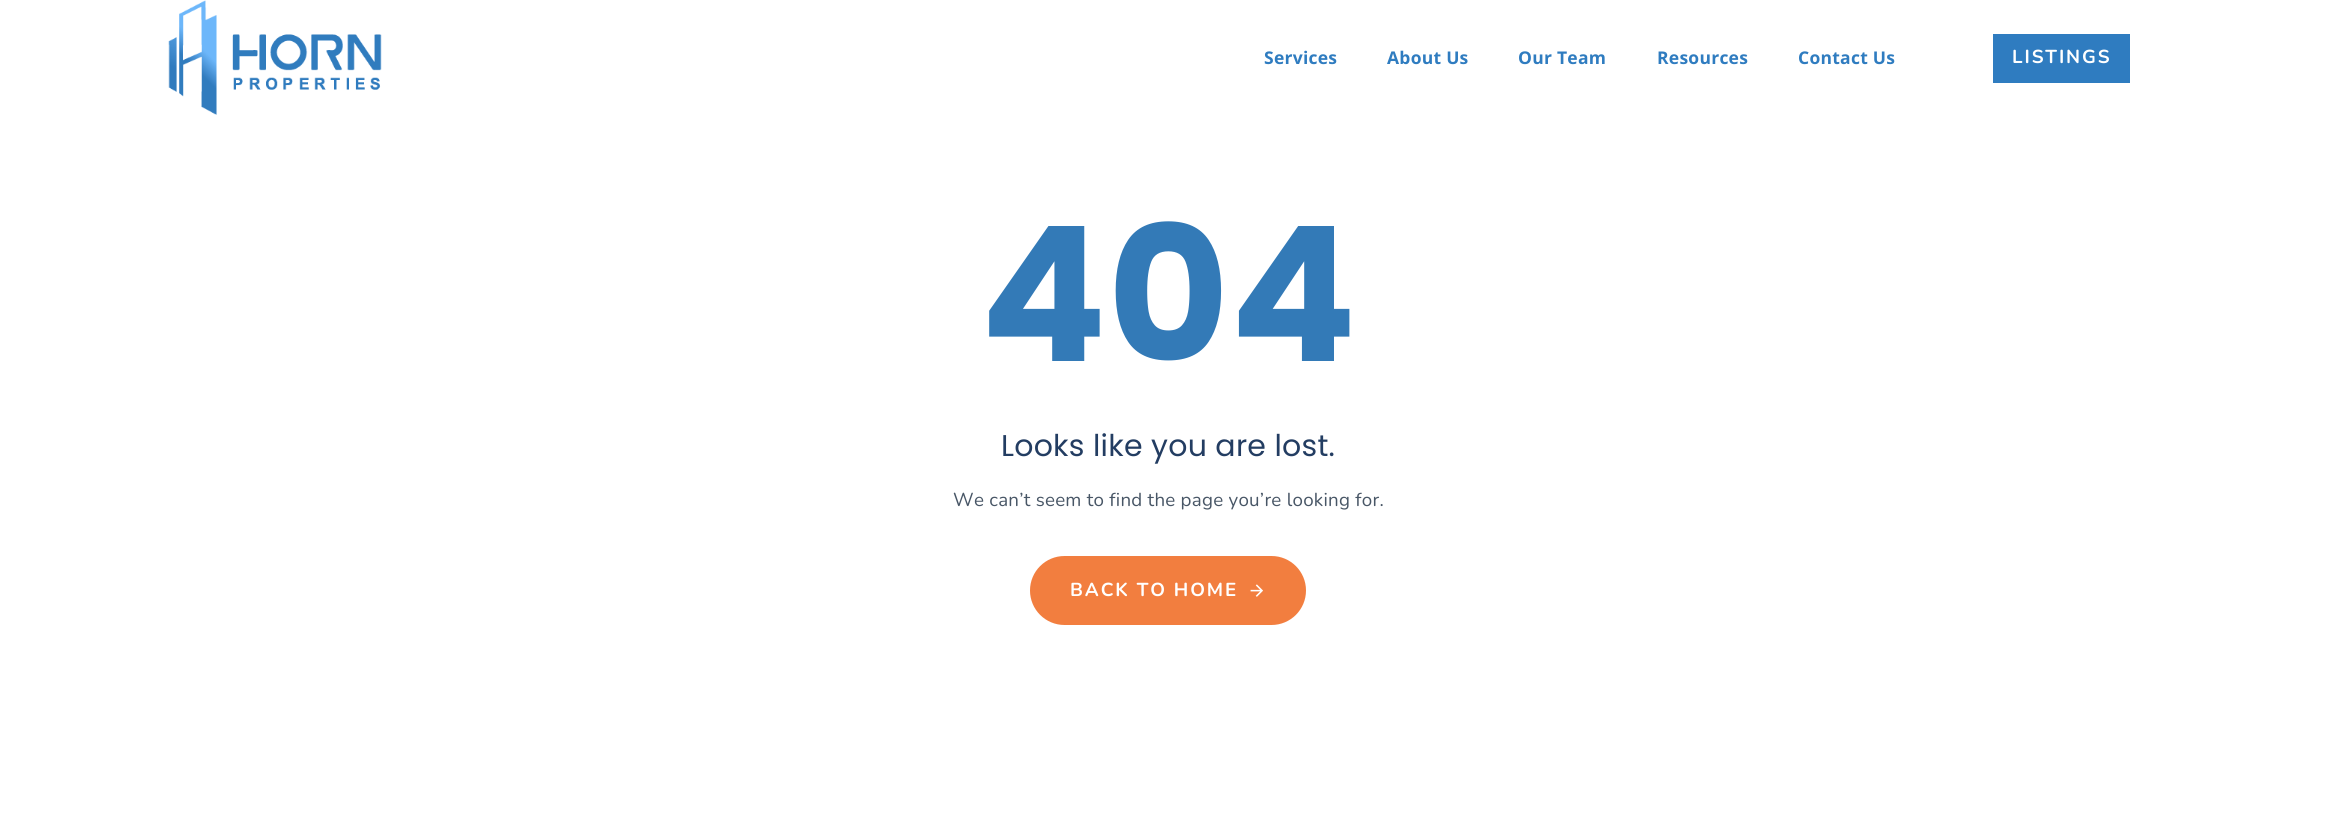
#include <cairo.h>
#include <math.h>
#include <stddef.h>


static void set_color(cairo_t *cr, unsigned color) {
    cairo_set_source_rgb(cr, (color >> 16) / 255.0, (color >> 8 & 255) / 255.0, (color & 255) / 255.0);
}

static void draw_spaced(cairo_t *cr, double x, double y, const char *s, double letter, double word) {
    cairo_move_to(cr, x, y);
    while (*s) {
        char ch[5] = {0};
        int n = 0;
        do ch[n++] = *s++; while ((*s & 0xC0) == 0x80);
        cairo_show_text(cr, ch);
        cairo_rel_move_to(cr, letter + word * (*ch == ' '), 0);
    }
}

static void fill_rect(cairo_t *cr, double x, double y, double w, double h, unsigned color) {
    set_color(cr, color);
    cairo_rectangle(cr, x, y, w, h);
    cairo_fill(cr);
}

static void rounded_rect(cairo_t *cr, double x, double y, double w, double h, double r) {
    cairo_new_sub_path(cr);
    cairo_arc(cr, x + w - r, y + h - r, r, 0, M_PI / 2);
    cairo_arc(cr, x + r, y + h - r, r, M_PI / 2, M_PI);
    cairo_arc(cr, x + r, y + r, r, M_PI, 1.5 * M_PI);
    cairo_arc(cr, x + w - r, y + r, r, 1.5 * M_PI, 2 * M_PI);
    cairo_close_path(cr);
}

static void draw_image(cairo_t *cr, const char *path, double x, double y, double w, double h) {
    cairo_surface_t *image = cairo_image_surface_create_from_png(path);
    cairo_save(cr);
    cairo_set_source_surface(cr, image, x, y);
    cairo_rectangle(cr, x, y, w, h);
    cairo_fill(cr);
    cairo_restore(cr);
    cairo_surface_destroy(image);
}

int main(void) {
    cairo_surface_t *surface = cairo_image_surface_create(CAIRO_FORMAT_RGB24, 2336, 817);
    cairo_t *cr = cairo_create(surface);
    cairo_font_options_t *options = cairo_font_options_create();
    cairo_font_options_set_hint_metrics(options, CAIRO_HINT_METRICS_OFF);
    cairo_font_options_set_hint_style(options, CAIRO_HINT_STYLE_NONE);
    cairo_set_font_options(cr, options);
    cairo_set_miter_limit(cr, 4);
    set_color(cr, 0xFFFFFF);
    cairo_paint(cr);
    draw_image(cr, "assets/img1.png", 168, 0, 214, 115);
    cairo_select_font_face(cr, "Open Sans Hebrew", CAIRO_FONT_SLANT_NORMAL, CAIRO_FONT_WEIGHT_BOLD);
    cairo_set_font_size(cr, 17.5);
    set_color(cr, 0x2F7CC0);
    draw_spaced(cr, 1264, 64, "Services", 0.25, 0);
    draw_spaced(cr, 1387, 64, "About Us", 0.25, 0);
    draw_spaced(cr, 1518, 64, "Our Team", 0.25, 0);
    draw_spaced(cr, 1657, 64, "Resources", 0.25, 0);
    draw_spaced(cr, 1798, 64, "Contact Us", 0.25, 0);
    fill_rect(cr, 1993, 34, 137, 49, 0x2F7CC0);
    cairo_select_font_face(cr, "Nunito", CAIRO_FONT_SLANT_NORMAL, CAIRO_FONT_WEIGHT_BOLD);
    cairo_set_font_size(cr, 18.75);
    set_color(cr, 0xFFFFFF);
    draw_spaced(cr, 2012, 63, "LISTINGS", 1.9, 0);
    cairo_select_font_face(cr, "Poppins", CAIRO_FONT_SLANT_NORMAL, CAIRO_FONT_WEIGHT_BOLD);
    cairo_set_font_size(cr, 187.5);
    set_color(cr, 0x337AB7);
    draw_spaced(cr, 980, 361, "404", 0.25, 0);
    cairo_select_font_face(cr, "Poppins", CAIRO_FONT_SLANT_NORMAL, CAIRO_FONT_WEIGHT_NORMAL);
    cairo_set_font_size(cr, 30);
    set_color(cr, 0x233D62);
    draw_spaced(cr, 1001, 456, "Looks like you are lost.", 0.25, 0);
    cairo_select_font_face(cr, "Nunito", CAIRO_FONT_SLANT_NORMAL, CAIRO_FONT_WEIGHT_NORMAL);
    cairo_set_font_size(cr, 18.75);
    set_color(cr, 0x485666);
    draw_spaced(cr, 953, 506, "We can’t seem to find the page you’re looking for.", 0.25, 0);
    set_color(cr, 0xF27E3F);
    rounded_rect(cr, 1030, 556, 276, 69, 34.5);
    cairo_fill(cr);
    cairo_select_font_face(cr, "Nunito", CAIRO_FONT_SLANT_NORMAL, CAIRO_FONT_WEIGHT_BOLD);
    set_color(cr, 0xFFFFFF);
    draw_spaced(cr, 1070, 596, "BACK TO HOME", 1.9, 0);
    draw_image(cr, "assets/img2.png", 1250, 584, 13, 13);
    cairo_surface_write_to_png(surface, "output.png");
    cairo_font_options_destroy(options);
    cairo_destroy(cr);
    cairo_surface_destroy(surface);
    return 0;
}
